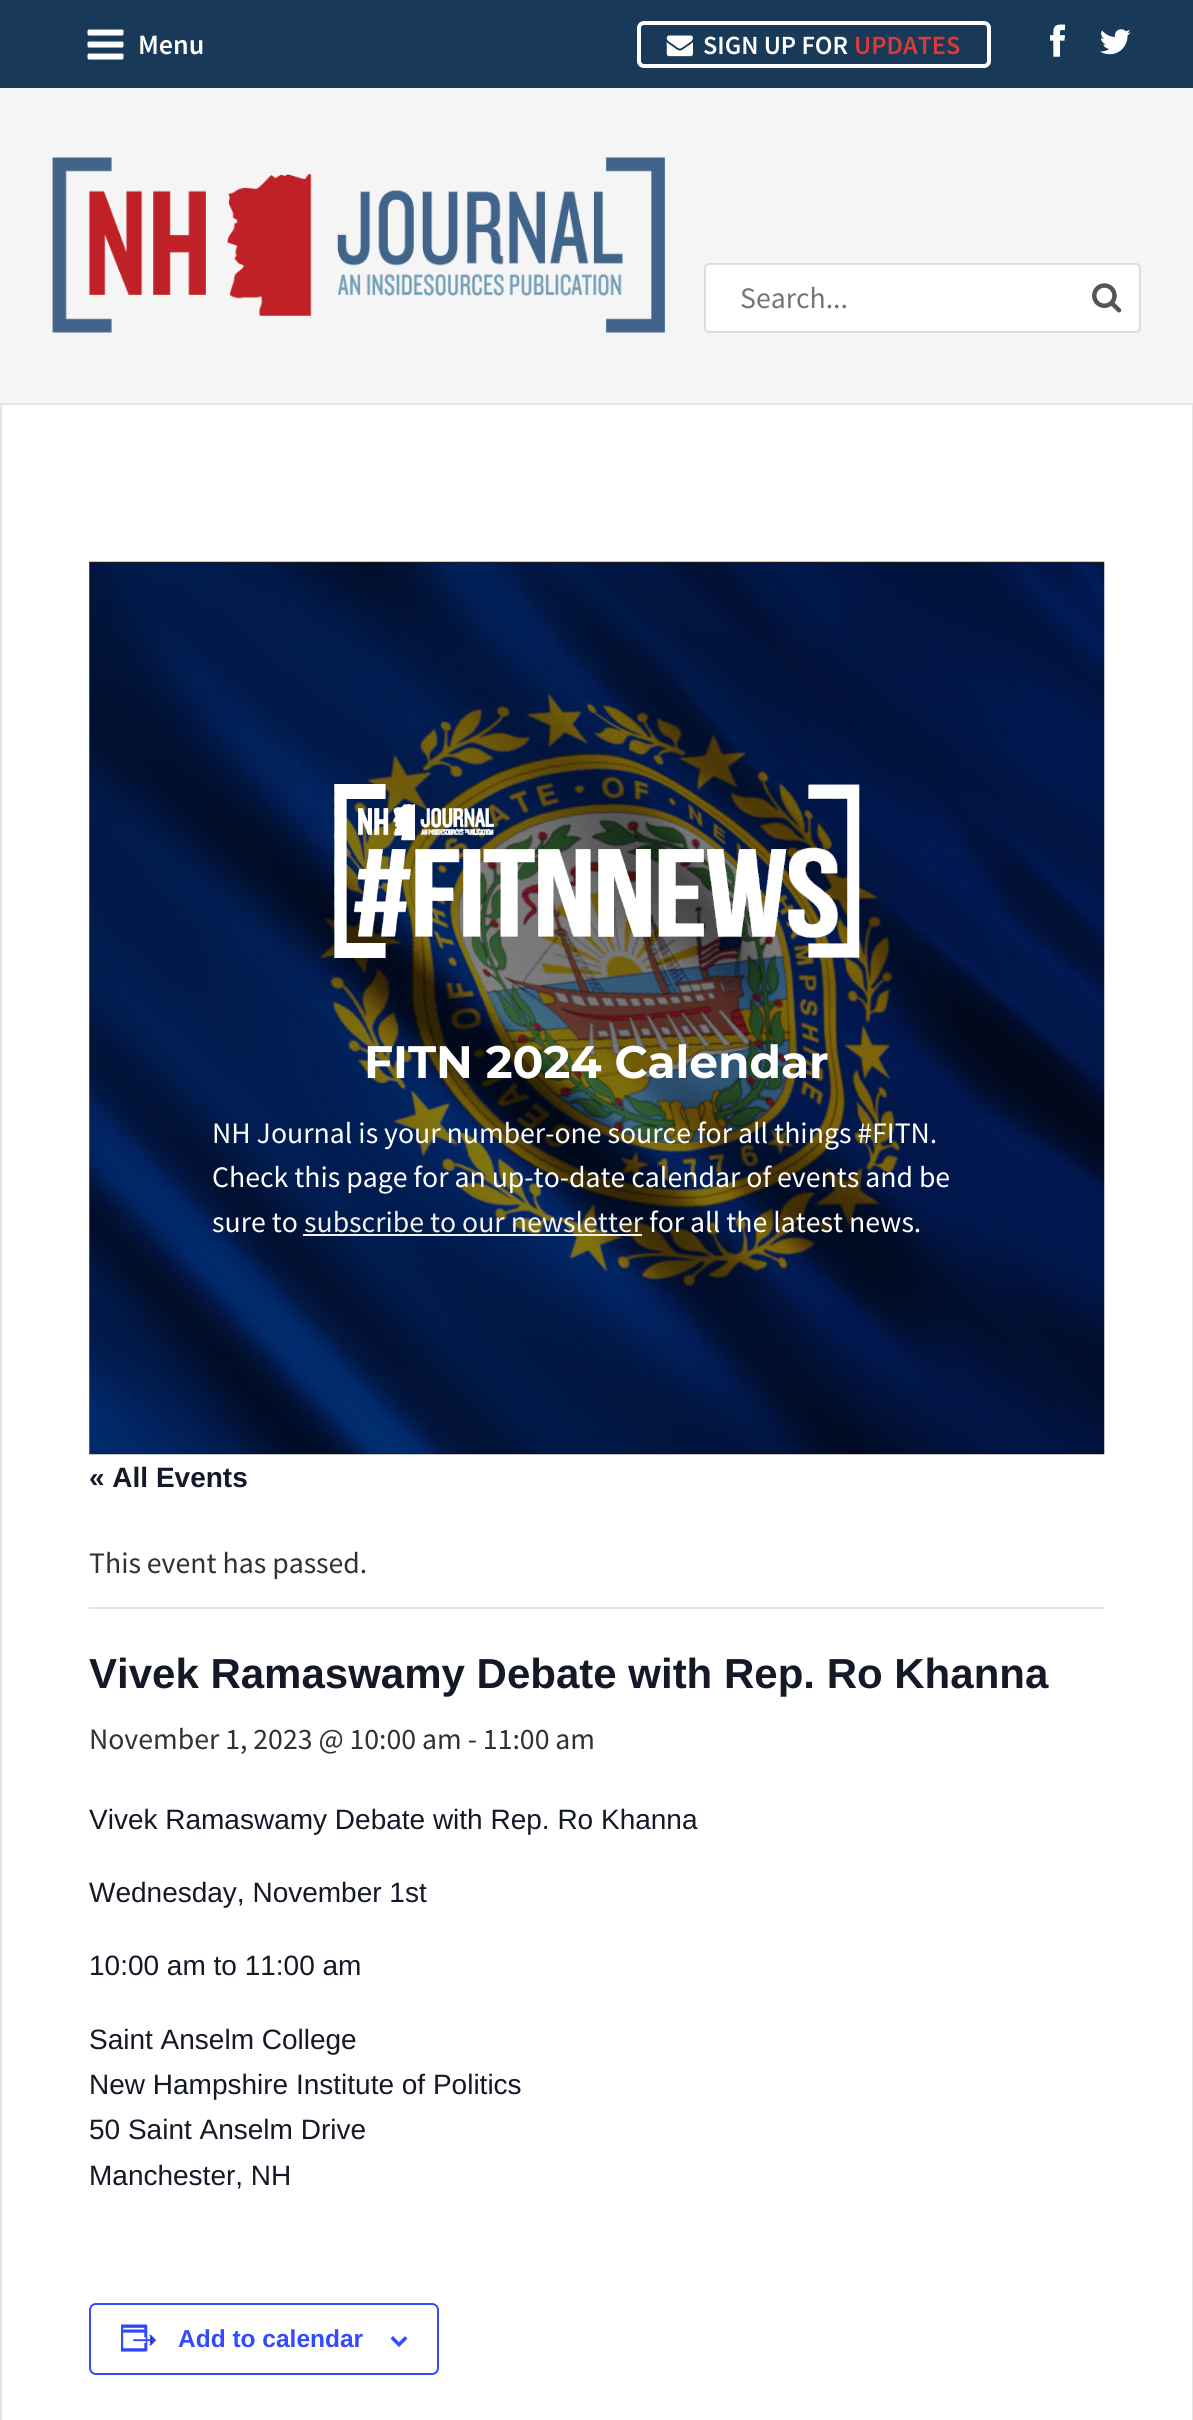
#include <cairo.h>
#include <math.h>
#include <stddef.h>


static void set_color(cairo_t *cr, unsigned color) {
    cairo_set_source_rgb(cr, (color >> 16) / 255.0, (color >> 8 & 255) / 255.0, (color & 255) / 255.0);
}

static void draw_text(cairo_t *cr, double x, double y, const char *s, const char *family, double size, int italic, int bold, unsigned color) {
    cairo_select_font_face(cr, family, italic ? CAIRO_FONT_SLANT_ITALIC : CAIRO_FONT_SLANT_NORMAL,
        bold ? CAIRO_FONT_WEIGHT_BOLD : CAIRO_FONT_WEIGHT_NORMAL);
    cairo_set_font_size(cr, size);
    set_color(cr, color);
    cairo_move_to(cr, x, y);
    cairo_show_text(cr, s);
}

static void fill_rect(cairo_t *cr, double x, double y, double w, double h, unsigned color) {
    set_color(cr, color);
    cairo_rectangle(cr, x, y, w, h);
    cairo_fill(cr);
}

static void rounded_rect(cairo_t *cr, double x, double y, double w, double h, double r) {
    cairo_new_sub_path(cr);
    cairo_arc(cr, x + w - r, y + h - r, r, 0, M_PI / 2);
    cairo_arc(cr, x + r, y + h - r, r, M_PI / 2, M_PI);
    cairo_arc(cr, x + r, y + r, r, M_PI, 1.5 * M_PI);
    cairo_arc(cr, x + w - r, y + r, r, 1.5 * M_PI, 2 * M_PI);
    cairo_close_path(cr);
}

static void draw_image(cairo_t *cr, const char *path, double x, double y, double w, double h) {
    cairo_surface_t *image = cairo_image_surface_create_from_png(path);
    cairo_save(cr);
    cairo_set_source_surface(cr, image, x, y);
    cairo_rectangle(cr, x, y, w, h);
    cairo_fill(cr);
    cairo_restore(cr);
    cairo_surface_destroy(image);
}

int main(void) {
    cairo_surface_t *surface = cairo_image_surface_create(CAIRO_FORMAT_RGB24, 1193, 2420);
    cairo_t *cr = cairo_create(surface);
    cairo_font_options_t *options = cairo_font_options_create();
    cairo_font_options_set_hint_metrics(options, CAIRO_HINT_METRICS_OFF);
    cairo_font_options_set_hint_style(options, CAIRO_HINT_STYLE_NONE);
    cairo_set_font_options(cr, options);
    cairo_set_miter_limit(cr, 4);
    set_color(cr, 0xF5F5F5);
    cairo_paint(cr);
    fill_rect(cr, 0, 0, 1193, 88, 0x183957);
    draw_image(cr, "assets/img1.png", 87, 29, 37, 31);
    draw_text(cr, 138, 54, "Menu", "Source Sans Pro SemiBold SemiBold", 28, 0, 0, 0xFFFFFF);
    rounded_rect(cr, 639, 23, 350, 43, 5);
    cairo_set_line_width(cr, 4);
    cairo_stroke(cr);
    draw_image(cr, "assets/img2.png", 666, 35, 27, 22);
    draw_text(cr, 703, 54, "SIGN UP FOR", "Source Sans Pro SemiBold SemiBold", 26.25, 0, 0, 0xFFFFFF);
    draw_text(cr, 854, 54, "UPDATES", "Source Sans Pro SemiBold SemiBold", 26.25, 0, 0, 0xD93A3A);
    draw_image(cr, "assets/img3.png", 1050, 24, 15, 33);
    draw_image(cr, "assets/img4.png", 1100, 29, 31, 26);
    draw_image(cr, "assets/img5.png", 52, 157, 613, 176);
    set_color(cr, 0xFFFFFF);
    rounded_rect(cr, 705, 264, 435, 68, 4);
    cairo_fill_preserve(cr);
    set_color(cr, 0xDDDDDD);
    cairo_set_line_width(cr, 2);
    cairo_stroke(cr);
    draw_text(cr, 740, 308, "Search...", "Source Sans Pro", 29.75, 0, 0, 0x757575);
    draw_image(cr, "assets/img6.png", 1092, 283, 30, 30);
    set_color(cr, 0xFFFFFF);
    cairo_rectangle(cr, 1, 404, 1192, 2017);
    cairo_fill_preserve(cr);
    set_color(cr, 0xE5E5E5);
    cairo_stroke(cr);
    draw_image(cr, "assets/img7.png", 89, 561, 1016, 894);
    draw_image(cr, "assets/img8.png", 334, 784, 526, 174);
    draw_text(cr, 364, 1078, "FITN 2024 Calendar", "Montserrat", 45.5, 0, 1, 0xFFFFFF);
    draw_text(cr, 212, 1143, "NH Journal is your number-one source for all things #FITN.", "Source Sans Pro", 29.75, 0, 0, 0xFFFFFF);
    draw_text(cr, 212, 1187, "Check this page for an up-to-date calendar of events and be", "Source Sans Pro", 29.75, 0, 0, 0xFFFFFF);
    draw_text(cr, 212, 1232, "sure to", "Source Sans Pro", 29.75, 0, 0, 0xFFFFFF);
    draw_text(cr, 304, 1232, "subscribe to our newsletter", "Source Sans Pro", 29.75, 0, 0, 0xF1F1F1);
    fill_rect(cr, 303, 1234, 339, 2, 0xF1F1F1);
    draw_text(cr, 649, 1232, "for all the latest news.", "Source Sans Pro", 29.75, 0, 0, 0xFFFFFF);
    draw_text(cr, 89, 1487, "« All Events", "Liberation Sans", 28, 0, 1, 0x141827);
    fill_rect(cr, 89, 1607, 1015, 2, 0xE4E4E4);
    draw_text(cr, 89, 1573, "This event has passed.", "Source Sans Pro", 29.75, 0, 0, 0x313131);
    draw_text(cr, 89, 1688, "Vivek Ramaswamy Debate with Rep. Ro Khanna", "Liberation Sans", 42, 0, 1, 0x141827);
    draw_text(cr, 89, 1749, "November 1, 2023 @ 10:00 am - 11:00 am", "Source Sans Pro", 29.75, 0, 0, 0x313131);
    draw_text(cr, 89, 1829, "Vivek Ramaswamy Debate with Rep. Ro Khanna", "Liberation Sans", 28, 0, 0, 0x141827);
    draw_text(cr, 89, 1902, "Wednesday, November 1st", "Liberation Sans", 28, 0, 0, 0x141827);
    draw_text(cr, 89, 1975, "10:00 am to 11:00 am", "Liberation Sans", 28, 0, 0, 0x141827);
    draw_text(cr, 89, 2049, "Saint Anselm College", "Liberation Sans", 28, 0, 0, 0x141827);
    draw_text(cr, 89, 2094, "New Hampshire Institute of Politics", "Liberation Sans", 28, 0, 0, 0x141827);
    draw_text(cr, 89, 2139, "50 Saint Anselm Drive", "Liberation Sans", 28, 0, 0, 0x141827);
    draw_text(cr, 89, 2185, "Manchester, NH", "Liberation Sans", 28, 0, 0, 0x141827);
    rounded_rect(cr, 90, 2304, 348, 70, 6);
    set_color(cr, 0x334AFF);
    cairo_stroke(cr);
    draw_image(cr, "assets/img9.png", 121, 2324, 35, 28);
    draw_text(cr, 178, 2347, "Add to calendar", "Liberation Sans", 24.5, 0, 1, 0x334AFF);
    draw_image(cr, "assets/img10.png", 390, 2336, 18, 11);
    cairo_surface_write_to_png(surface, "output.png");
    cairo_font_options_destroy(options);
    cairo_destroy(cr);
    cairo_surface_destroy(surface);
    return 0;
}
